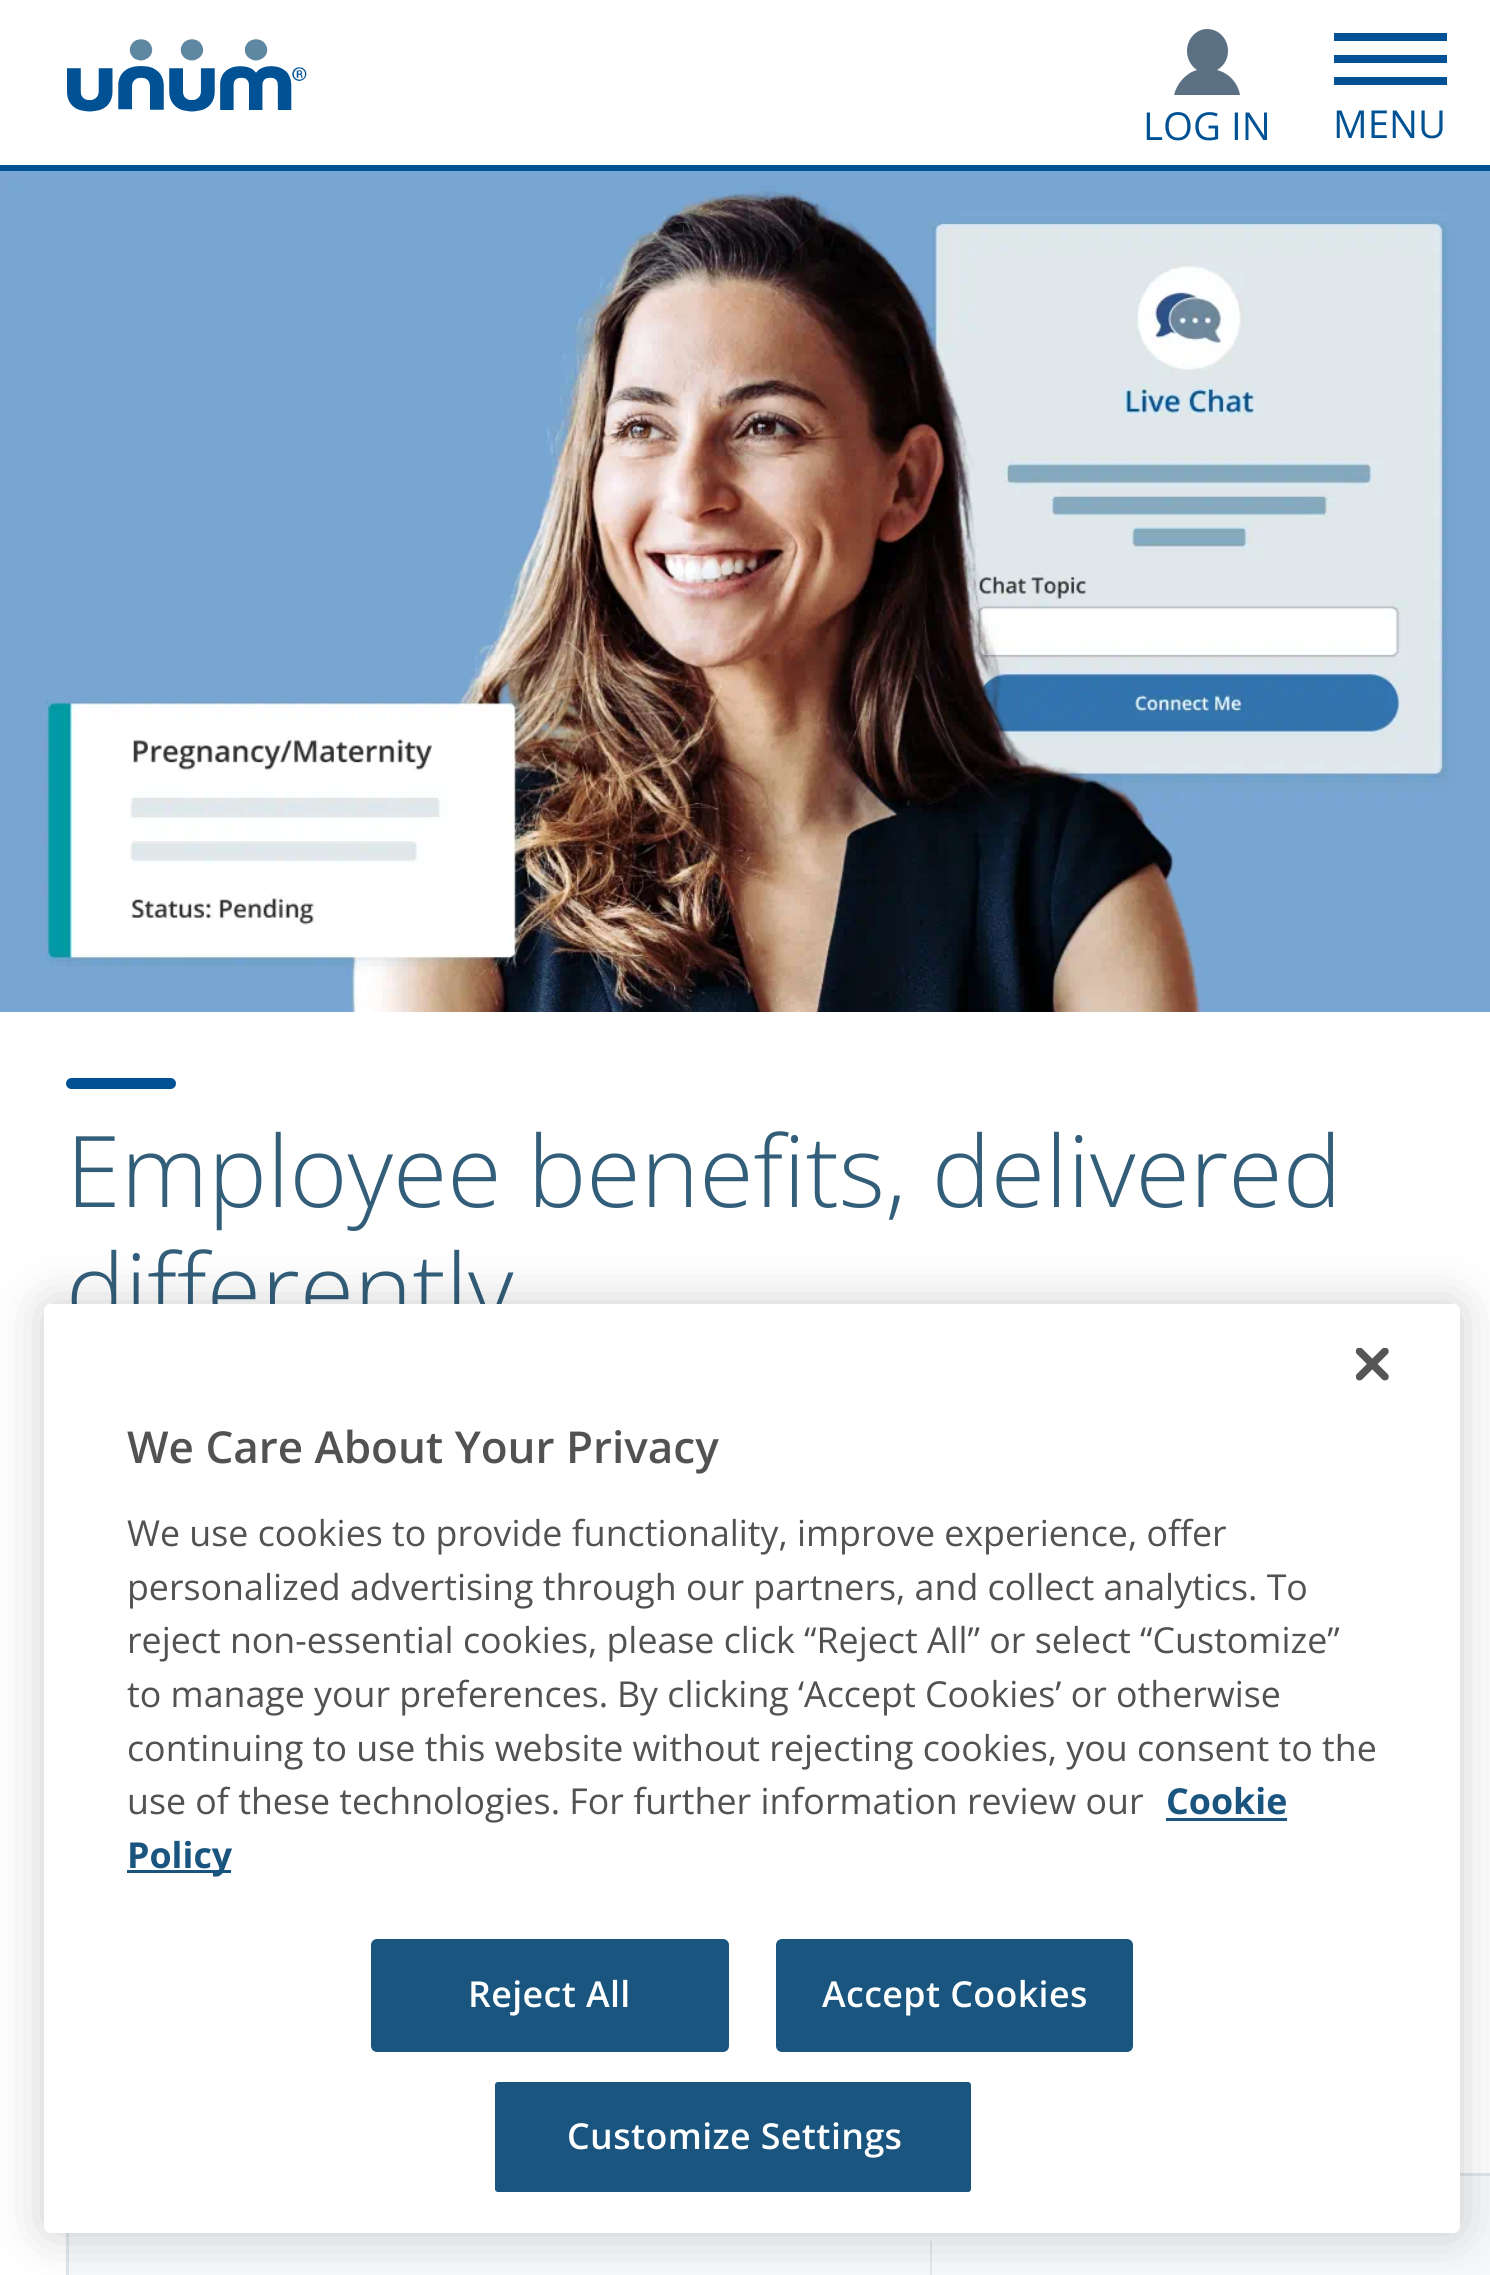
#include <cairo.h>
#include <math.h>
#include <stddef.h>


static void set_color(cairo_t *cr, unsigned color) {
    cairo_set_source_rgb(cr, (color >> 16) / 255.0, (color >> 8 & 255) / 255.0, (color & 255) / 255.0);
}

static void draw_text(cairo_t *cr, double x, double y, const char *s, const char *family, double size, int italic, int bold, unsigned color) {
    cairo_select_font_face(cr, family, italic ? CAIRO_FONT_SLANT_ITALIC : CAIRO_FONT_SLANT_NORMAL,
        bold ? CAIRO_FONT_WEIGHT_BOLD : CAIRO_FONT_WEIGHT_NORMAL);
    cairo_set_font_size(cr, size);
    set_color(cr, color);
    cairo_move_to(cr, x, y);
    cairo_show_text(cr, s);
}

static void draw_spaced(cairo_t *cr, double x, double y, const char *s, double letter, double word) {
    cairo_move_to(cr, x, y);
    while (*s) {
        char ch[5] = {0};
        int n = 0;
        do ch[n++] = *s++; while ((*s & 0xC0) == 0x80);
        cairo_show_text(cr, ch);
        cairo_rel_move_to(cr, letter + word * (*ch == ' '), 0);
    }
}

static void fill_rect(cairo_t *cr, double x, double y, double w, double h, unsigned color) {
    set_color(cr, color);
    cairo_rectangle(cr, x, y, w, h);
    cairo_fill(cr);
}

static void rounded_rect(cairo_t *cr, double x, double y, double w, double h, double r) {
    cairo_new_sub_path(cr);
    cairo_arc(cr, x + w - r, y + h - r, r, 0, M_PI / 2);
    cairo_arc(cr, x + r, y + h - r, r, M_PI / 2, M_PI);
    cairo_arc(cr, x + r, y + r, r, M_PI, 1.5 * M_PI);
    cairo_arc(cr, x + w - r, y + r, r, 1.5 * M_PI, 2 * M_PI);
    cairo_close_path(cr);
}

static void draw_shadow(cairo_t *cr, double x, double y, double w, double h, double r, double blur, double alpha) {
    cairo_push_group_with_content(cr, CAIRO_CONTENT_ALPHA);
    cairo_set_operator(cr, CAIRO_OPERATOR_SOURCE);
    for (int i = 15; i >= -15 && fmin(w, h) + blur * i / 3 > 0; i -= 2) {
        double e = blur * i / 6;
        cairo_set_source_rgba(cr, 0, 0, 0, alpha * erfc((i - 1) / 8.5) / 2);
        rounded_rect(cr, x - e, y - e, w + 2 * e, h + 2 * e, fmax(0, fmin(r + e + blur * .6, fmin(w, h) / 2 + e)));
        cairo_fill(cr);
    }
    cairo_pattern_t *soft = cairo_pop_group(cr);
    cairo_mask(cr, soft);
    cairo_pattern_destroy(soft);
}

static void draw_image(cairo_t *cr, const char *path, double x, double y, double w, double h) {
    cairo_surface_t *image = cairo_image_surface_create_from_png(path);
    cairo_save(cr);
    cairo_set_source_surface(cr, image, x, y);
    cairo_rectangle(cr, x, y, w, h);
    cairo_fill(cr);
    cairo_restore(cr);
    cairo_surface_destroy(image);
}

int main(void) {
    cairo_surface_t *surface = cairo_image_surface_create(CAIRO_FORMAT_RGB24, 1490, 2275);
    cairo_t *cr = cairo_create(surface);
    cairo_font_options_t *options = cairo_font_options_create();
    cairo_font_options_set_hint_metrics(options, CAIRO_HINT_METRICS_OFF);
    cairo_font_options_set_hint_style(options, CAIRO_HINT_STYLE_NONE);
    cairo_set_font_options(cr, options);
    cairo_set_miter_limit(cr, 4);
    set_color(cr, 0xFFFFFF);
    cairo_paint(cr);
    fill_rect(cr, 0, 165, 1490, 6, 0x015294);
    draw_image(cr, "assets/img1.png", 67, 39, 240, 73);
    set_color(cr, 0x5B7183);
    cairo_set_fill_rule(cr, CAIRO_FILL_RULE_EVEN_ODD);
    cairo_new_path(cr);
    cairo_move_to(cr, 1240, 95);
    cairo_curve_to(cr, 1238, 83, 1229, 73, 1217, 70);
    cairo_curve_to(cr, 1224, 66, 1228, 59, 1228, 51);
    cairo_curve_to(cr, 1228, 39, 1219, 29, 1207, 29);
    cairo_curve_to(cr, 1196, 29, 1187, 39, 1187, 51);
    cairo_curve_to(cr, 1187, 59, 1191, 66, 1197, 70);
    cairo_curve_to(cr, 1186, 73, 1177, 83, 1174, 95);
    cairo_close_path(cr);
    cairo_fill(cr);
    draw_text(cr, 1143, 140, "LOG IN", "Open Sans", 38.5, 0, 0, 0x015294);
    fill_rect(cr, 1334, 55, 113, 8, 0x015294);
    fill_rect(cr, 1334, 33, 113, 8, 0x015294);
    fill_rect(cr, 1334, 77, 113, 8, 0x015294);
    draw_text(cr, 1333, 138, "MENU", "Open Sans", 38.5, 0, 0, 0x015294);
    draw_image(cr, "assets/img2.png", 0, 171, 1490, 841);
    rounded_rect(cr, 66, 1078, 110, 11, 5.5);
    cairo_fill(cr);
    draw_text(cr, 66, 1207, "Employee benefits, delivered", "Open Sans Light", 99, 0, 0, 0x335E7A);
    draw_text(cr, 66, 1325, "differently", "Open Sans Light", 99, 0, 0, 0x335E7A);
    fill_rect(cr, 69, 2233, 861, 42, 0xF6F8FA);
    fill_rect(cr, 66, 2233, 3, 42, 0xDFE7EC);
    fill_rect(cr, 930, 2233, 2, 8, 0xF6F8FA);
    fill_rect(cr, 930, 2241, 2, 34, 0xDFE7EC);
    fill_rect(cr, 932, 2176, 558, 99, 0xF6F8FA);
    fill_rect(cr, 1460, 2173, 30, 3, 0xDFE7EC);
    set_color(cr, 0x000000);
    draw_shadow(cr, 44, 1304, 1416, 929, 7, 25, 0.2);
    set_color(cr, 0xFFFFFF);
    rounded_rect(cr, 44, 1304, 1416, 929, 7);
    cairo_fill(cr);
    draw_image(cr, "assets/img3.png", 1356, 1348, 33, 33);
    draw_text(cr, 127, 1463, "We Care About Your Privacy", "Open Sans SemiBold", 44, 0, 0, 0x525252);
    draw_text(cr, 127, 1546, "We use cookies to provide functionality, improve experience, offer", "Open Sans", 35.75, 0, 0, 0x525252);
    draw_text(cr, 127, 1600, "personalized advertising through our partners, and collect analytics. To", "Open Sans", 35.75, 0, 0, 0x525252);
    draw_text(cr, 127, 1653, "reject non-essential cookies, please click “Reject All” or select “Customize”", "Open Sans", 35.75, 0, 0, 0x525252);
    draw_text(cr, 127, 1707, "to manage your preferences.", "Open Sans", 35.75, 0, 0, 0x525252);
    draw_text(cr, 617, 1707, "By clicking ‘Accept Cookies’ or otherwise", "Open Sans", 35.75, 0, 0, 0x525252);
    draw_text(cr, 127, 1761, "continuing to use this website without rejecting cookies, you consent to the", "Open Sans", 35.75, 0, 0, 0x525252);
    draw_text(cr, 127, 1814, "use of these technologies. For further information review our", "Open Sans", 35.75, 0, 0, 0x525252);
    draw_text(cr, 1166, 1814, "Cookie", "Open Sans", 35.75, 0, 1, 0x19557F);
    fill_rect(cr, 1166, 1818, 121, 3, 0x19557F);
    fill_rect(cr, 127, 1870, 104, 3, 0x19557F);
    draw_text(cr, 127, 1868, "Policy", "Open Sans", 35.75, 0, 1, 0x19557F);
    rounded_rect(cr, 372.5, 1940.5, 355, 110, 4.5);
    cairo_fill_preserve(cr);
    cairo_set_line_width(cr, 3);
    cairo_stroke(cr);
    cairo_select_font_face(cr, "Open Sans SemiBold", CAIRO_FONT_SLANT_NORMAL, CAIRO_FONT_WEIGHT_NORMAL);
    set_color(cr, 0xFFFFFF);
    draw_spaced(cr, 468, 2007, "Reject All", 0.4, 0);
    set_color(cr, 0x19557F);
    rounded_rect(cr, 777.5, 1940.5, 354, 110, 4.5);
    cairo_fill_preserve(cr);
    cairo_stroke(cr);
    set_color(cr, 0xFFFFFF);
    draw_spaced(cr, 822, 2007, "Accept Cookies", 0.4, 0);
    set_color(cr, 0x19557F);
    rounded_rect(cr, 493.5, 2080.5, 479, 113, 4.5);
    cairo_fill_preserve(cr);
    set_color(cr, 0xFFFFFF);
    cairo_stroke(cr);
    draw_spaced(cr, 567, 2149, "Customize Settings", 0.4, 0);
    cairo_surface_write_to_png(surface, "output.png");
    cairo_font_options_destroy(options);
    cairo_destroy(cr);
    cairo_surface_destroy(surface);
    return 0;
}
